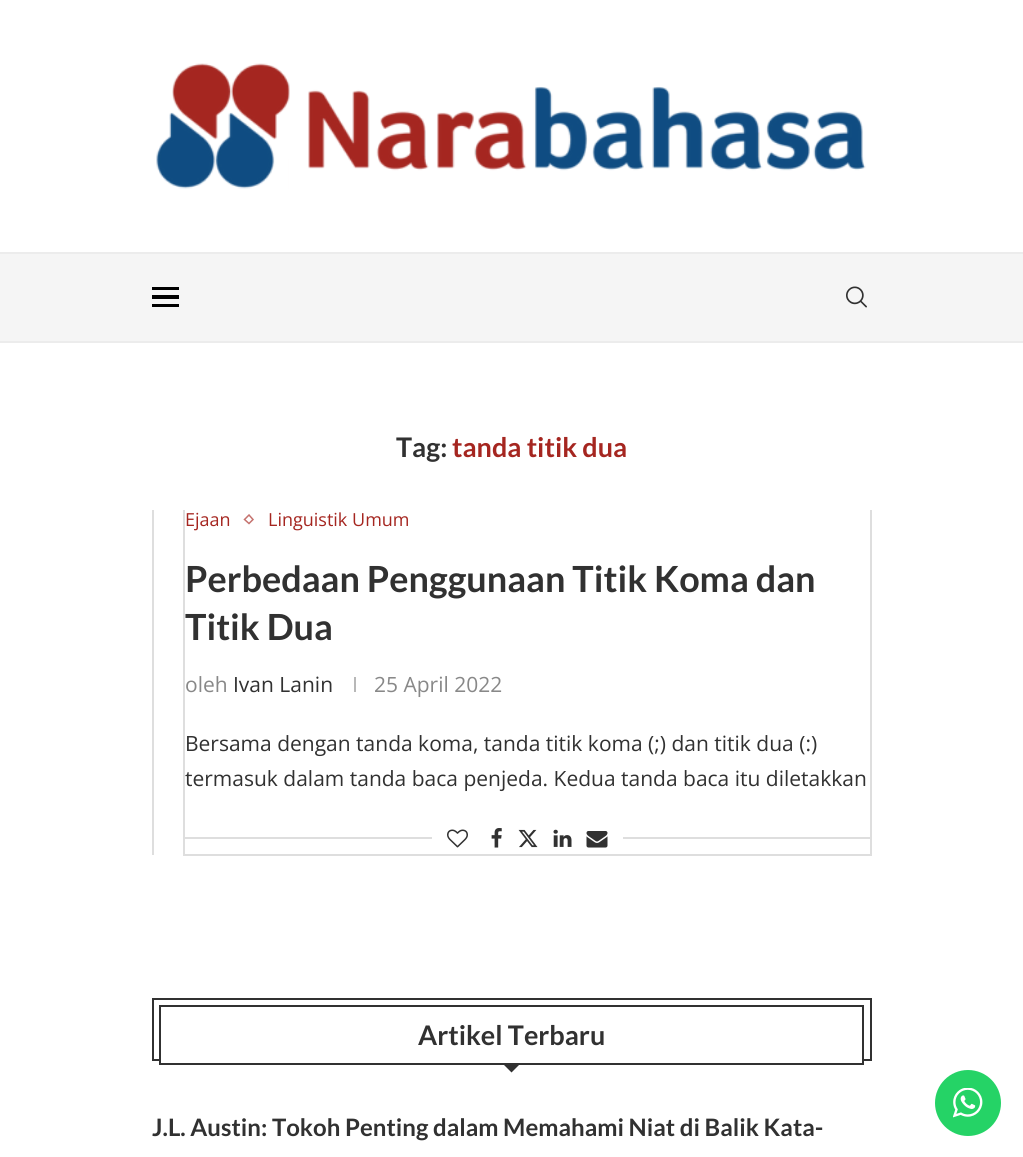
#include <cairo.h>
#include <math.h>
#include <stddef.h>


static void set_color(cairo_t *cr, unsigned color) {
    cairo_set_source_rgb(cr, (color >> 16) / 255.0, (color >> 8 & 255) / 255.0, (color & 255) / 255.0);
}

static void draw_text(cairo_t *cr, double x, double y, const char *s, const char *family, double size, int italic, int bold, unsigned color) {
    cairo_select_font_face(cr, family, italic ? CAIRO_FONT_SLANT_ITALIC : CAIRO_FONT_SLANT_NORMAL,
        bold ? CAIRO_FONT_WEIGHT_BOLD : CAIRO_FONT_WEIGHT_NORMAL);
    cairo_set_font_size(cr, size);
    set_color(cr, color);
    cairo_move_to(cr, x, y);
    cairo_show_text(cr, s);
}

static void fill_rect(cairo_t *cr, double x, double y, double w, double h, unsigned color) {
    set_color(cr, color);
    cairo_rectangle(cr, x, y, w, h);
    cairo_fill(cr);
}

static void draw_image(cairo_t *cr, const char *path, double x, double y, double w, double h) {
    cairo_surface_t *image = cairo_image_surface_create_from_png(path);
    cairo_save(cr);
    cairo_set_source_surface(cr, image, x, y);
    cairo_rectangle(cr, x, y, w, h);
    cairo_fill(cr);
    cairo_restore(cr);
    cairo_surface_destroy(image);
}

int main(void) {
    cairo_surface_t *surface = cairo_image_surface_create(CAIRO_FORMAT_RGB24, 1023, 1157);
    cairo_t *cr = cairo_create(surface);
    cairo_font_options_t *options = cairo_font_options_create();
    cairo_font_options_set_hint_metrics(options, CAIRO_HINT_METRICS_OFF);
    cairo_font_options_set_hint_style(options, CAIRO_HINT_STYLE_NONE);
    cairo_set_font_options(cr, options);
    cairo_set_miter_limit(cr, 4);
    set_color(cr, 0xFFFFFF);
    cairo_paint(cr);
    draw_image(cr, "assets/img1.png", 156, 63, 710, 126);
    fill_rect(cr, 0, 254, 1023, 87, 0xF5F5F5);
    fill_rect(cr, 0, 252, 1023, 2, 0xECECEC);
    fill_rect(cr, 0, 341, 1023, 2, 0xECECEC);
    fill_rect(cr, 152, 287, 27, 3, 0x000000);
    fill_rect(cr, 152, 295, 27, 4, 0x000000);
    fill_rect(cr, 152, 304, 27, 3, 0x000000);
    draw_image(cr, "assets/img2.png", 846, 286, 21, 22);
    draw_text(cr, 396, 457, "Tag:", "Lato", 27, 0, 1, 0x313131);
    draw_text(cr, 452, 457, "tanda titik dua", "Lato", 27, 0, 1, 0xA52620);
    fill_rect(cr, 152, 510, 2, 345, 0xDEDEDE);
    fill_rect(cr, 870, 510, 2, 345, 0xDEDEDE);
    fill_rect(cr, 183, 854, 689, 2, 0xDEDEDE);
    fill_rect(cr, 183, 510, 2, 345, 0xDEDEDE);
    draw_text(cr, 185, 526, "Ejaan", "Open Sans", 18, 0, 0, 0xA52620);
    cairo_new_path(cr);
    cairo_move_to(cr, 249, 515);
    cairo_line_to(cr, 253, 519.5);
    cairo_line_to(cr, 249, 523.5);
    cairo_line_to(cr, 244.5, 519.5);
    cairo_close_path(cr);
    set_color(cr, 0xC5726E);
    cairo_set_line_width(cr, 1.5);
    cairo_stroke(cr);
    draw_text(cr, 268, 526, "Linguistik Umum", "Open Sans", 18, 0, 0, 0xA52620);
    draw_text(cr, 185, 592, "Perbedaan Penggunaan Titik Koma dan", "Lato", 36, 0, 1, 0x313131);
    draw_text(cr, 185, 640, "Titik Dua", "Lato", 36, 0, 1, 0x313131);
    draw_text(cr, 185, 692, "oleh", "Open Sans", 21, 0, 0, 0x888888);
    draw_text(cr, 233, 692, "Ivan Lanin", "Open Sans", 21, 0, 0, 0x313131);
    fill_rect(cr, 354, 677, 2, 15, 0xB8B8B8);
    draw_text(cr, 374, 692, "25 April 2022", "Open Sans", 21, 0, 0, 0x888888);
    draw_text(cr, 185, 751, "Bersama dengan tanda koma, tanda titik koma (;) dan titik dua (:)", "Open Sans", 21, 0, 0, 0x313131);
    draw_text(cr, 185, 786, "termasuk dalam tanda baca penjeda. Kedua tanda baca itu diletakkan", "Open Sans", 21, 0, 0, 0x313131);
    fill_rect(cr, 185, 837, 685, 2, 0xDEDEDE);
    fill_rect(cr, 432, 837, 191, 2, 0xFFFFFF);
    draw_image(cr, "assets/img3.png", 447, 829, 21, 19);
    draw_image(cr, "assets/img4.png", 491, 828, 11, 20);
    draw_image(cr, "assets/img5.png", 518, 829, 20, 19);
    draw_image(cr, "assets/img6.png", 553, 829, 19, 18);
    draw_image(cr, "assets/img7.png", 586, 831, 22, 17);
    cairo_rectangle(cr, 153, 999, 718, 61);
    set_color(cr, 0x313131);
    cairo_set_line_width(cr, 2);
    cairo_stroke(cr);
    fill_rect(cr, 161, 1059, 701, 2, 0xFFFFFF);
    cairo_rectangle(cr, 160, 1006, 703, 58);
    set_color(cr, 0x313131);
    cairo_stroke(cr);
    draw_text(cr, 418, 1045, "Artikel Terbaru", "Lato", 27, 0, 1, 0x313131);
    cairo_new_path(cr);
    cairo_move_to(cr, 502.5, 1063.5);
    cairo_line_to(cr, 520.5, 1063.5);
    cairo_line_to(cr, 511.5, 1072.5);
    cairo_close_path(cr);
    cairo_fill(cr);
    draw_text(cr, 152, 1136, "J.L. Austin: Tokoh Penting dalam Memahami Niat di Balik Kata-", "Lato", 24, 0, 1, 0x313131);
    set_color(cr, 0x25D366);
    cairo_new_path(cr);
    cairo_arc(cr, 968, 1103, 33, 0, 2 * M_PI);
    cairo_fill(cr);
    draw_image(cr, "assets/img8.png", 953, 1088, 30, 30);
    cairo_surface_write_to_png(surface, "output.png");
    cairo_font_options_destroy(options);
    cairo_destroy(cr);
    cairo_surface_destroy(surface);
    return 0;
}
